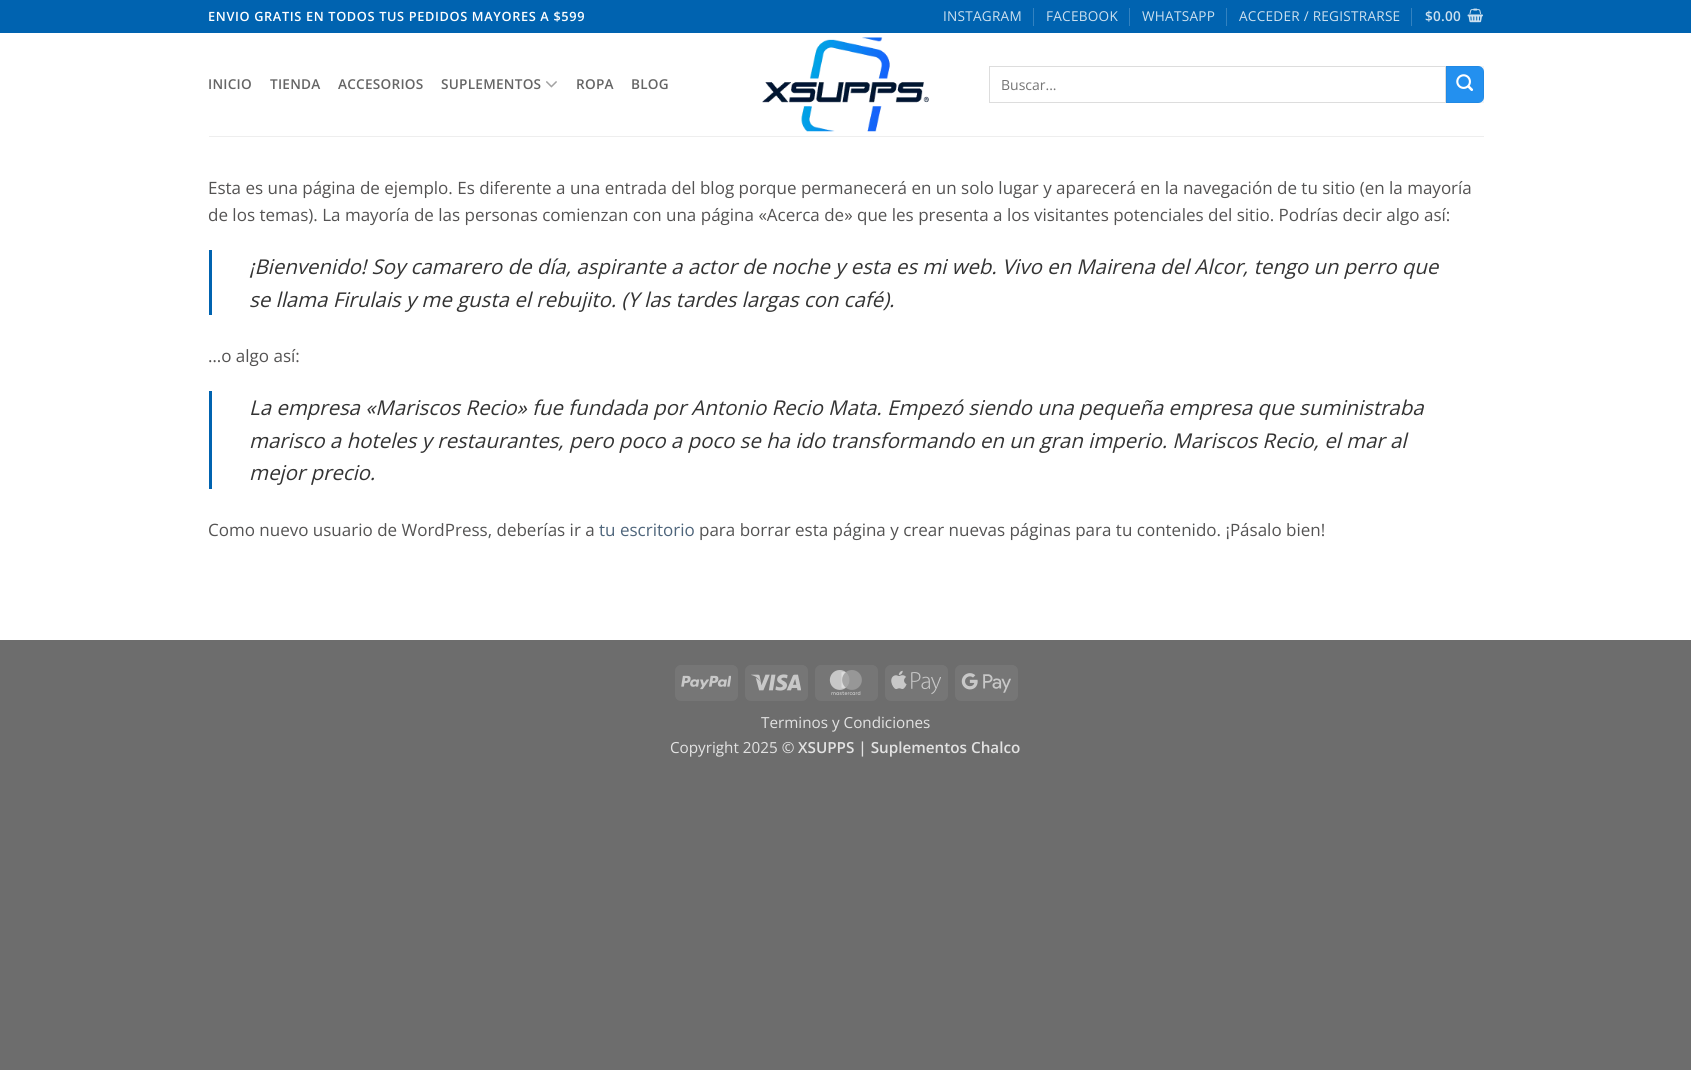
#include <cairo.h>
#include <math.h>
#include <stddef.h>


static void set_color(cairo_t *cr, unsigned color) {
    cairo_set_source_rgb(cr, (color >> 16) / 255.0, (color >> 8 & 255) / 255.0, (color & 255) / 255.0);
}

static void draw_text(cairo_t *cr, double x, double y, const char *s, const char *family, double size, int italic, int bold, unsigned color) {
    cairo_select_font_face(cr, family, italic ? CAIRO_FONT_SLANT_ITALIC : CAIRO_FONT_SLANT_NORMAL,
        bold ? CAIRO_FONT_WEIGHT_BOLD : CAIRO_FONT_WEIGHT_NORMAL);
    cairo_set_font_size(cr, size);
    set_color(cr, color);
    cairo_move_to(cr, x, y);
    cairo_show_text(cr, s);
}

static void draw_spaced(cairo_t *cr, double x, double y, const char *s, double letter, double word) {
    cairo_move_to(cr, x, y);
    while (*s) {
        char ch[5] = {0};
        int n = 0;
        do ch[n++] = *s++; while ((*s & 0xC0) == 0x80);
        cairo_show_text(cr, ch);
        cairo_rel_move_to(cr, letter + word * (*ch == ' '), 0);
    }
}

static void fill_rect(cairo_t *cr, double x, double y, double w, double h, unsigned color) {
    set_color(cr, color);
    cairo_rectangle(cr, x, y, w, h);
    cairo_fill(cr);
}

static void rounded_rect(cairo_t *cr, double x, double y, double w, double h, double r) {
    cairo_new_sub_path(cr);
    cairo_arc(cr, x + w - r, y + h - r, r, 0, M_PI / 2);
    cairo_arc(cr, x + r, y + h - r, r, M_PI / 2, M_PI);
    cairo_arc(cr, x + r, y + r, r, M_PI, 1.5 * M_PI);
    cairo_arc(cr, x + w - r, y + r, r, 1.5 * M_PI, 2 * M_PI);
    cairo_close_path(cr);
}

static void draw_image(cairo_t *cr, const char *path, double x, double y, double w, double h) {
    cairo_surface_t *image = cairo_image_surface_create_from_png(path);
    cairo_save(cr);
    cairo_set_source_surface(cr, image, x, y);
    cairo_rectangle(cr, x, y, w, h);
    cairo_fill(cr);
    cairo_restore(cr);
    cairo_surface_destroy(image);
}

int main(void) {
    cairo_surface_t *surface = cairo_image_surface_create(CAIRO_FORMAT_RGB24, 1691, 1070);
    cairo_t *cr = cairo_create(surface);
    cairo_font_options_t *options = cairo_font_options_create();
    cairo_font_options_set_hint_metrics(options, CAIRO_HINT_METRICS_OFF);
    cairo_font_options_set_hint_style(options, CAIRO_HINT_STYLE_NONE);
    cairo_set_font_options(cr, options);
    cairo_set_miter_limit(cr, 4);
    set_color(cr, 0x6D6D6D);
    cairo_paint(cr);
    fill_rect(cr, 0, 33, 1691, 607, 0xFFFFFF);
    fill_rect(cr, 0, 0, 1691, 33, 0x0063B0);
    cairo_select_font_face(cr, "Open Sans SemiBold", CAIRO_FONT_SLANT_NORMAL, CAIRO_FONT_WEIGHT_NORMAL);
    cairo_set_font_size(cr, 12.75);
    set_color(cr, 0xFFFFFF);
    draw_spaced(cr, 208, 21, "ENVIO GRATIS EN TODOS TUS PEDIDOS MAYORES A $599", 0.65, 0);
    cairo_select_font_face(cr, "Open Sans", CAIRO_FONT_SLANT_NORMAL, CAIRO_FONT_WEIGHT_NORMAL);
    cairo_set_font_size(cr, 13.6);
    set_color(cr, 0xCCE0EF);
    draw_spaced(cr, 943, 21, "INSTAGRAM", 0.25, 0);
    fill_rect(cr, 1033, 8, 1, 18, 0x3382C0);
    set_color(cr, 0xCCE0EF);
    draw_spaced(cr, 1046, 21, "FACEBOOK", 0.25, 0);
    fill_rect(cr, 1129, 8, 1, 18, 0x3382C0);
    set_color(cr, 0xCCE0EF);
    draw_spaced(cr, 1142, 21, "WHATSAPP", 0.25, 0);
    fill_rect(cr, 1226, 8, 1, 18, 0x3382C0);
    set_color(cr, 0xCCE0EF);
    draw_spaced(cr, 1239, 21, "ACCEDER / REGISTRARSE", 0.25, 0);
    fill_rect(cr, 1411, 8, 1, 18, 0x3382C0);
    cairo_select_font_face(cr, "Open Sans SemiBold", CAIRO_FONT_SLANT_NORMAL, CAIRO_FONT_WEIGHT_NORMAL);
    set_color(cr, 0xCCE0EF);
    draw_spaced(cr, 1425, 21, "$0.00", 0.25, 0);
    draw_image(cr, "assets/img1.png", 1467, 8, 16, 15);
    set_color(cr, 0x656565);
    draw_spaced(cr, 208, 89, "INICIO", 0.25, 0);
    draw_spaced(cr, 270, 89, "TIENDA", 0.25, 0);
    draw_spaced(cr, 338, 89, "ACCESORIOS", 0.25, 0);
    draw_spaced(cr, 441, 89, "SUPLEMENTOS", 0.25, 0);
    draw_image(cr, "assets/img2.png", 546, 81, 11, 7);
    draw_spaced(cr, 576, 89, "ROPA", 0.25, 0);
    draw_spaced(cr, 631, 89, "BLOG", 0.25, 0);
    draw_image(cr, "assets/img3.png", 762, 37, 167, 95);
    cairo_rectangle(cr, 989.5, 66.5, 456, 36);
    set_color(cr, 0xDDDDDD);
    cairo_set_line_width(cr, 1);
    cairo_stroke(cr);
    draw_text(cr, 1001, 90, "Buscar...", "Open Sans", 14, 0, 0, 0x757575);
    set_color(cr, 0x2390EF);
    cairo_new_path(cr);
    cairo_move_to(cr, 1446, 66);
    cairo_line_to(cr, 1478, 66);
    cairo_curve_to(cr, 1481.5, 66, 1484, 68.5, 1484, 72);
    cairo_line_to(cr, 1484, 97);
    cairo_curve_to(cr, 1484, 100.5, 1481.5, 103, 1478, 103);
    cairo_line_to(cr, 1446, 103);
    cairo_close_path(cr);
    cairo_fill(cr);
    cairo_rectangle(cr, 1446.5, 66.5, 37, 36);
    cairo_set_source_rgba(cr, 0, 0, 0, 0.05);
    cairo_stroke(cr);
    draw_image(cr, "assets/img4.png", 1456, 74, 18, 17);
    fill_rect(cr, 209, 136, 1275, 1, 0xEEEEEE);
    draw_text(cr, 208, 194, "Esta es una página de ejemplo. Es diferente a una entrada del blog porque permanecerá en un solo lugar y aparecerá en la navegación de tu sitio (en la mayoría", "Open Sans", 17, 0, 0, 0x545353);
    draw_text(cr, 208, 221, "de los temas). La mayoría de las personas comienzan con una página «Acerca de» que les presenta a los visitantes potenciales del sitio. Podrías decir algo así:", "Open Sans", 17, 0, 0, 0x545353);
    fill_rect(cr, 209, 250, 3, 65, 0x0063B0);
    draw_text(cr, 249, 274, "¡Bienvenido! Soy camarero de día, aspirante a actor de noche y esta es mi web. Vivo en Mairena del Alcor, tengo un perro que", "Open Sans", 20.4, 1, 0, 0x333333);
    draw_text(cr, 249, 307, "se llama Firulais y me gusta el rebujito. (Y las tardes largas con café).", "Open Sans", 20.4, 1, 0, 0x333333);
    draw_text(cr, 208, 362, "…o algo así:", "Open Sans", 17, 0, 0, 0x545353);
    fill_rect(cr, 209, 391, 3, 98, 0x0063B0);
    draw_text(cr, 249, 415, "La empresa «Mariscos Recio» fue fundada por Antonio Recio Mata. Empezó siendo una pequeña empresa que suministraba", "Open Sans", 20.4, 1, 0, 0x333333);
    draw_text(cr, 249, 448, "marisco a hoteles y restaurantes, pero poco a poco se ha ido transformando en un gran imperio. Mariscos Recio, el mar al", "Open Sans", 20.4, 1, 0, 0x333333);
    draw_text(cr, 249, 480, "mejor precio.", "Open Sans", 20.4, 1, 0, 0x333333);
    draw_text(cr, 208, 536, "Como nuevo usuario de WordPress, deberías ir a", "Open Sans", 17, 0, 0, 0x545353);
    draw_text(cr, 599, 536, "tu escritorio", "Open Sans", 17, 0, 0, 0x4E657B);
    draw_text(cr, 699, 536, "para borrar esta página y crear nuevas páginas para tu contenido. ¡Pásalo bien!", "Open Sans", 17, 0, 0, 0x545353);
    set_color(cr, 0x767676);
    rounded_rect(cr, 675, 665, 63, 36, 6);
    cairo_fill(cr);
    draw_image(cr, "assets/img5.png", 681, 675, 50, 15);
    rounded_rect(cr, 745, 665, 63, 36, 6);
    cairo_fill(cr);
    draw_image(cr, "assets/img6.png", 751, 674, 50, 17);
    rounded_rect(cr, 815, 665, 63, 36, 6);
    cairo_fill(cr);
    draw_image(cr, "assets/img7.png", 829, 670, 33, 25);
    rounded_rect(cr, 885, 665, 63, 36, 6);
    cairo_fill(cr);
    draw_image(cr, "assets/img8.png", 891, 670, 50, 25);
    rounded_rect(cr, 955, 665, 63, 36, 6);
    cairo_fill(cr);
    draw_image(cr, "assets/img9.png", 961, 673, 50, 20);
    draw_text(cr, 761, 728, "Terminos y Condiciones", "Open Sans", 15.25, 0, 0, 0xE2E2E2);
    draw_text(cr, 670, 753, "Copyright 2025 ©", "Open Sans", 15.25, 0, 0, 0xE2E2E2);
    draw_text(cr, 798, 753, "XSUPPS | Suplementos Chalco", "Open Sans SemiBold", 15.25, 0, 0, 0xE2E2E2);
    cairo_surface_write_to_png(surface, "output.png");
    cairo_font_options_destroy(options);
    cairo_destroy(cr);
    cairo_surface_destroy(surface);
    return 0;
}
